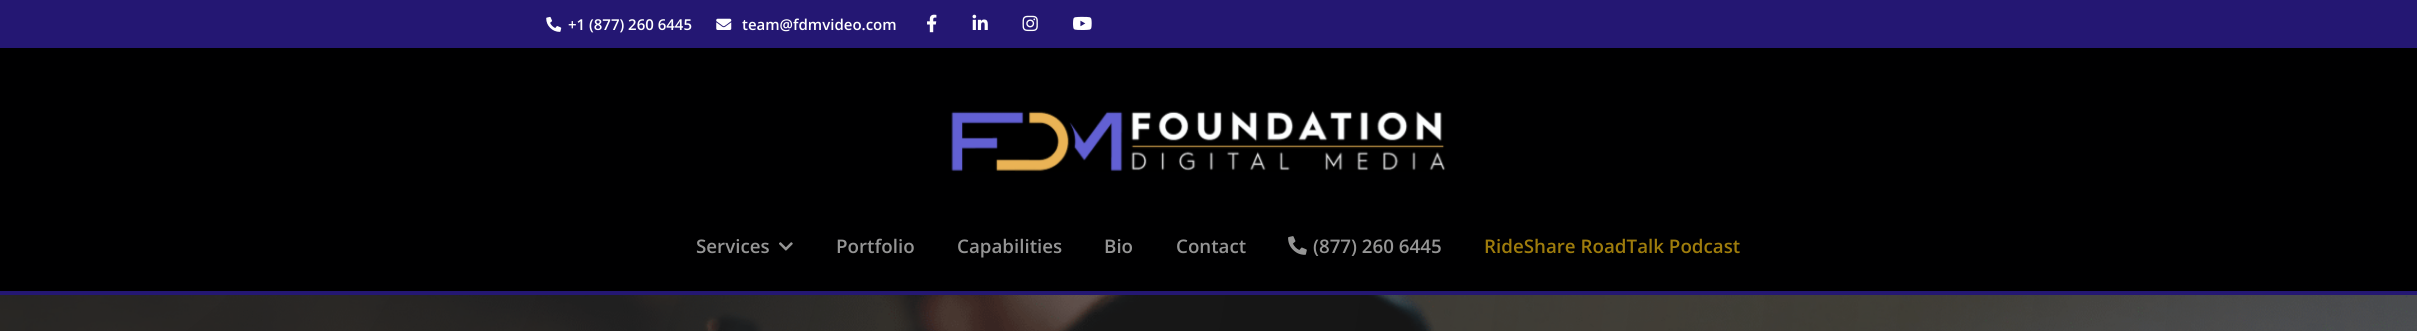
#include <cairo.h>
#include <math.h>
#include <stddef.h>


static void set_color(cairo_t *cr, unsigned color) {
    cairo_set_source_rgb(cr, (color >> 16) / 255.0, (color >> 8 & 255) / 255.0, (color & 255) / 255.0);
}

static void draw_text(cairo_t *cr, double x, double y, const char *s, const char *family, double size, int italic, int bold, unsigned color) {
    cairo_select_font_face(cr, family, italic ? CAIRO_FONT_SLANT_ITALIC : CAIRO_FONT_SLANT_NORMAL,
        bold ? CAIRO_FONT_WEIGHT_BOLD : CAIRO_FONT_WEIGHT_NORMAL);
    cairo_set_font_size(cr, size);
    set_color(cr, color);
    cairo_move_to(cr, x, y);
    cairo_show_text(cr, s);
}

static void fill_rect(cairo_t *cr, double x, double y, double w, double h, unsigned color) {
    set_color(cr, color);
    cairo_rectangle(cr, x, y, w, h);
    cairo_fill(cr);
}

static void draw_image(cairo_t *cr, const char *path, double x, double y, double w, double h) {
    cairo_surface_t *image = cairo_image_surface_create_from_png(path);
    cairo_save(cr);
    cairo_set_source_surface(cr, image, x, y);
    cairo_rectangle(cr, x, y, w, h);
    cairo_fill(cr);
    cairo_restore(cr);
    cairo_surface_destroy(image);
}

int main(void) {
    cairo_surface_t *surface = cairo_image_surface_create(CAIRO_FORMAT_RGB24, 2417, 331);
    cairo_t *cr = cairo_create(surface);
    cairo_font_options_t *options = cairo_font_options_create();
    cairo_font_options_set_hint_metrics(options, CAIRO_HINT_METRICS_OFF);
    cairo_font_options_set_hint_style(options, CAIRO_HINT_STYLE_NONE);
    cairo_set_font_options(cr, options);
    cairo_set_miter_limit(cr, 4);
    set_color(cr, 0xFFFFFF);
    cairo_paint(cr);
    fill_rect(cr, 0, 0, 2417, 48, 0x241773);
    draw_image(cr, "assets/img1.png", 546, 16, 16, 16);
    draw_text(cr, 568, 30, "+1 (877) 260 6445", "Open Sans SemiBold", 15, 0, 0, 0xFFFFFF);
    draw_image(cr, "assets/img2.png", 716, 18, 16, 12);
    draw_text(cr, 742, 30, "team@fdmvideo.com", "Open Sans SemiBold", 15, 0, 0, 0xFFFFFF);
    draw_image(cr, "assets/img3.png", 927, 14, 10, 19);
    draw_image(cr, "assets/img4.png", 972, 14, 16, 16);
    draw_image(cr, "assets/img5.png", 1022, 15, 16, 17);
    draw_image(cr, "assets/img6.png", 1073, 16, 19, 14);
    fill_rect(cr, 0, 48, 2417, 243, 0x000001);
    fill_rect(cr, 0, 291, 2417, 4, 0x241773);
    draw_image(cr, "assets/img7.png", 951, 110, 495, 62);
    draw_text(cr, 696, 253, "Services", "Open Sans SemiBold", 18.75, 0, 0, 0x959595);
    draw_image(cr, "assets/img8.png", 779, 242, 14, 9);
    draw_text(cr, 836, 253, "Portfolio", "Open Sans SemiBold", 18.75, 0, 0, 0x959595);
    draw_text(cr, 957, 253, "Capabilities", "Open Sans SemiBold", 18.75, 0, 0, 0x959595);
    draw_text(cr, 1104, 253, "Bio", "Open Sans SemiBold", 18.75, 0, 0, 0x959595);
    draw_text(cr, 1176, 253, "Contact", "Open Sans SemiBold", 18.75, 0, 0, 0x959595);
    draw_image(cr, "assets/img9.png", 1288, 236, 19, 19);
    draw_text(cr, 1313, 253, "(877) 260 6445", "Open Sans SemiBold", 18.75, 0, 0, 0x959595);
    draw_text(cr, 1484, 253, "RideShare RoadTalk Podcast", "Open Sans SemiBold", 18.75, 0, 0, 0x9E7C0C);
    draw_image(cr, "assets/img10.png", 0, 295, 2417, 36);
    cairo_surface_write_to_png(surface, "output.png");
    cairo_font_options_destroy(options);
    cairo_destroy(cr);
    cairo_surface_destroy(surface);
    return 0;
}
